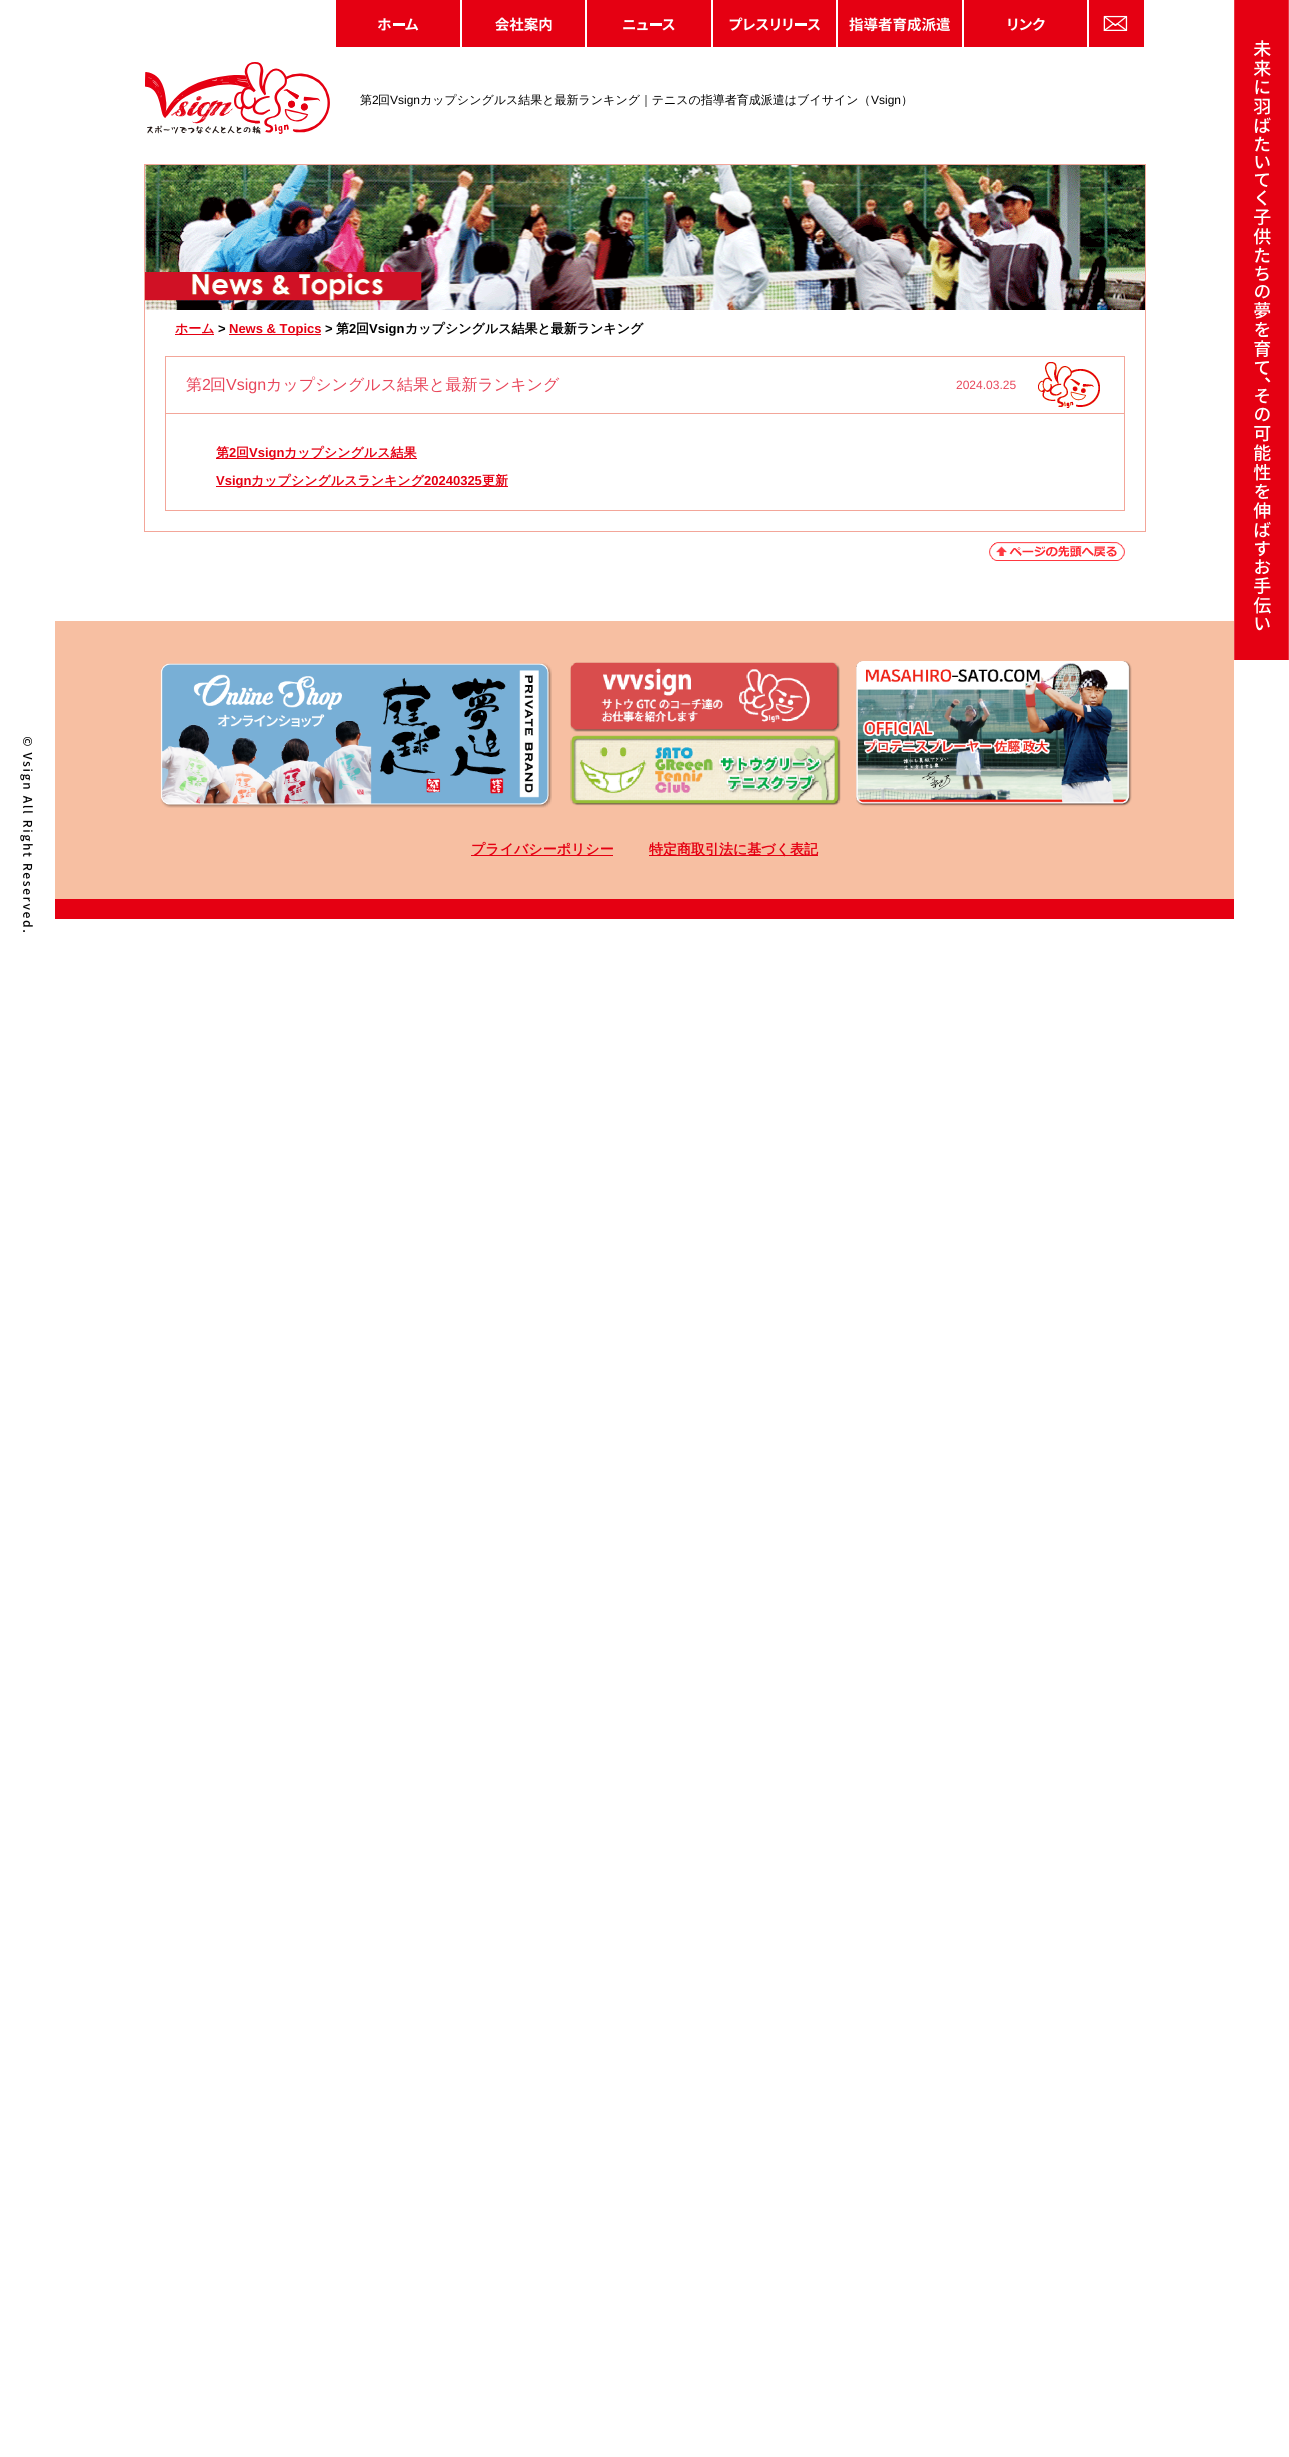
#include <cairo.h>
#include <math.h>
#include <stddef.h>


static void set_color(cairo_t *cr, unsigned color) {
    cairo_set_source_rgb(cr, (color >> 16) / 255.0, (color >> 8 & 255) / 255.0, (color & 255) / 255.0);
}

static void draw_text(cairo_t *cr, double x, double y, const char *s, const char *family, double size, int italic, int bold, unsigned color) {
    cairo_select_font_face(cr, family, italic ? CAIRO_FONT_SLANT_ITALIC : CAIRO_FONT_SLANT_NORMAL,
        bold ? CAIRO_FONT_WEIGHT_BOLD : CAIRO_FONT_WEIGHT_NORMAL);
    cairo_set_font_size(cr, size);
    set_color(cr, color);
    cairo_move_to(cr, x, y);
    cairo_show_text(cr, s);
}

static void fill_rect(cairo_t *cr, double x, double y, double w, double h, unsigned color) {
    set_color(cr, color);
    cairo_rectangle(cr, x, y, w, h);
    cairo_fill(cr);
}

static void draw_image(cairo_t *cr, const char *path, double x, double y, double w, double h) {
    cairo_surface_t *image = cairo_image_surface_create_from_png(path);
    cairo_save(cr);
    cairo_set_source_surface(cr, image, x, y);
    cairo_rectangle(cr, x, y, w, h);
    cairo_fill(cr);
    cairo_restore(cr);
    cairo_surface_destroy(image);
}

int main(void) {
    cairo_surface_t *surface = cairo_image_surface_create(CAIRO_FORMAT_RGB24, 1289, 2457);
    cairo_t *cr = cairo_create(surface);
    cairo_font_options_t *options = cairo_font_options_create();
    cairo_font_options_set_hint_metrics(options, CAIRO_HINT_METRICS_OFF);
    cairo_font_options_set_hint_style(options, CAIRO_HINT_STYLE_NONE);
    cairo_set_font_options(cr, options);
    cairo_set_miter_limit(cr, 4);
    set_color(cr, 0xFFFFFF);
    cairo_paint(cr);
    draw_image(cr, "assets/img1.png", 336, 0, 124, 47);
    draw_image(cr, "assets/img2.png", 462, 0, 123, 47);
    draw_image(cr, "assets/img3.png", 587, 0, 124, 47);
    draw_image(cr, "assets/img4.png", 713, 0, 123, 47);
    draw_image(cr, "assets/img5.png", 838, 0, 124, 47);
    draw_image(cr, "assets/img6.png", 964, 0, 123, 47);
    draw_image(cr, "assets/img7.png", 1089, 0, 55, 47);
    draw_image(cr, "assets/img8.png", 1234, 0, 55, 660);
    draw_image(cr, "assets/img9.png", 145, 62, 185, 72);
    draw_text(cr, 360, 104, "第", "WenQuanYi Zen Hei Medium", 12, 0, 0, 0x000000);
    draw_text(cr, 372, 104, "2", "Liberation Sans", 12, 0, 0, 0x000000);
    draw_text(cr, 378, 104, "回", "WenQuanYi Zen Hei Medium", 12, 0, 0, 0x000000);
    draw_text(cr, 390, 104, "Vsign", "Liberation Sans", 12, 0, 0, 0x000000);
    draw_text(cr, 420, 104, "カップシングルス結果と最新ランキング｜テニスの指導者育成派遣はブイサイン（", "WenQuanYi Zen Hei Medium", 12, 0, 0, 0x000000);
    draw_text(cr, 871, 104, "Vsign", "Liberation Sans", 12, 0, 0, 0x000000);
    draw_text(cr, 901, 104, "）", "WenQuanYi Zen Hei Medium", 12, 0, 0, 0x000000);
    draw_image(cr, "assets/img10.png", 20, 737, 13, 195);
    cairo_rectangle(cr, 144.5, 164.5, 1001, 367);
    set_color(cr, 0xF3A699);
    cairo_set_line_width(cr, 1);
    cairo_stroke(cr);
    draw_image(cr, "assets/img11.png", 145, 165, 1000, 145);
    fill_rect(cr, 175, 334, 39, 1, 0xE50012);
    draw_text(cr, 175, 333, "ホーム", "WenQuanYi Zen Hei", 13, 0, 1, 0xE50012);
    draw_text(cr, 218, 333, ">", "Liberation Sans", 13, 0, 1, 0x000000);
    fill_rect(cr, 229, 334, 92, 1, 0xE50012);
    draw_text(cr, 229, 333, "News & Topics", "Liberation Sans", 13, 0, 1, 0xE50012);
    draw_text(cr, 325, 333, ">", "Liberation Sans", 13, 0, 1, 0x000000);
    draw_text(cr, 336, 333, "第", "WenQuanYi Zen Hei", 13, 0, 1, 0x000000);
    draw_text(cr, 349, 333, "2", "Liberation Sans", 13, 0, 1, 0x000000);
    draw_text(cr, 356, 333, "回", "WenQuanYi Zen Hei", 13, 0, 1, 0x000000);
    draw_text(cr, 369, 333, "Vsign", "Liberation Sans", 13, 0, 1, 0x000000);
    draw_text(cr, 405, 333, "カップシングルス結果と最新ランキング", "WenQuanYi Zen Hei", 13, 0, 1, 0x000000);
    cairo_rectangle(cr, 165.5, 356.5, 959, 57);
    set_color(cr, 0xF3A699);
    cairo_stroke(cr);
    draw_text(cr, 186, 390, "第", "WenQuanYi Zen Hei Medium", 16, 0, 0, 0xE8465A);
    draw_text(cr, 202, 390, "2", "Liberation Sans", 16, 0, 0, 0xE8465A);
    draw_text(cr, 210, 390, "回", "WenQuanYi Zen Hei Medium", 16, 0, 0, 0xE8465A);
    draw_text(cr, 226, 390, "Vsign", "Liberation Sans", 16, 0, 0, 0xE8465A);
    draw_text(cr, 266, 390, "カップシングルス結果と最新ランキング", "WenQuanYi Zen Hei Medium", 16, 0, 0, 0xE8465A);
    draw_text(cr, 956, 389, "2024.03.25", "Liberation Sans", 12, 0, 0, 0xE8465A);
    draw_image(cr, "assets/img12.png", 1038, 362, 62, 46);
    fill_rect(cr, 1124, 414, 1, 97, 0xF3A699);
    fill_rect(cr, 165, 510, 960, 1, 0xF3A699);
    fill_rect(cr, 165, 414, 1, 97, 0xF3A699);
    fill_rect(cr, 216, 458, 201, 1, 0xE50012);
    draw_text(cr, 216, 457, "第", "WenQuanYi Zen Hei", 13, 0, 1, 0xE50012);
    draw_text(cr, 229, 457, "2", "Liberation Sans", 13, 0, 1, 0xE50012);
    draw_text(cr, 236, 457, "回", "WenQuanYi Zen Hei", 13, 0, 1, 0xE50012);
    draw_text(cr, 249, 457, "Vsign", "Liberation Sans", 13, 0, 1, 0xE50012);
    draw_text(cr, 284, 457, "カップシングルス結果", "WenQuanYi Zen Hei", 13, 0, 1, 0xE50012);
    fill_rect(cr, 216, 486, 292, 1, 0xE50012);
    draw_text(cr, 216, 485, "Vsign", "Liberation Sans", 13, 0, 1, 0xE50012);
    draw_text(cr, 251, 485, "カップシングルスランキング", "WenQuanYi Zen Hei", 13, 0, 1, 0xE50012);
    draw_text(cr, 424, 485, "20240325", "Liberation Sans", 13, 0, 1, 0xE50012);
    draw_text(cr, 482, 485, "更新", "WenQuanYi Zen Hei", 13, 0, 1, 0xE50012);
    draw_image(cr, "assets/img13.png", 989, 542, 136, 19);
    fill_rect(cr, 55, 621, 1179, 278, 0xF7BFA2);
    draw_image(cr, "assets/img14.png", 160, 663, 392, 145);
    draw_image(cr, "assets/img15.png", 570, 662, 270, 70);
    draw_image(cr, "assets/img16.png", 570, 735, 271, 71);
    draw_image(cr, "assets/img17.png", 856, 661, 276, 146);
    fill_rect(cr, 471, 855, 142, 1, 0xE50012);
    draw_text(cr, 471, 854, "プライバシーポリシー", "WenQuanYi Zen Hei", 14, 0, 1, 0xE50012);
    fill_rect(cr, 649, 855, 169, 1, 0xE50012);
    draw_text(cr, 649, 854, "特定商取引法に基づく表記", "WenQuanYi Zen Hei", 14, 0, 1, 0xE50012);
    fill_rect(cr, 55, 899, 1179, 20, 0xE50012);
    cairo_surface_write_to_png(surface, "output.png");
    cairo_font_options_destroy(options);
    cairo_destroy(cr);
    cairo_surface_destroy(surface);
    return 0;
}
